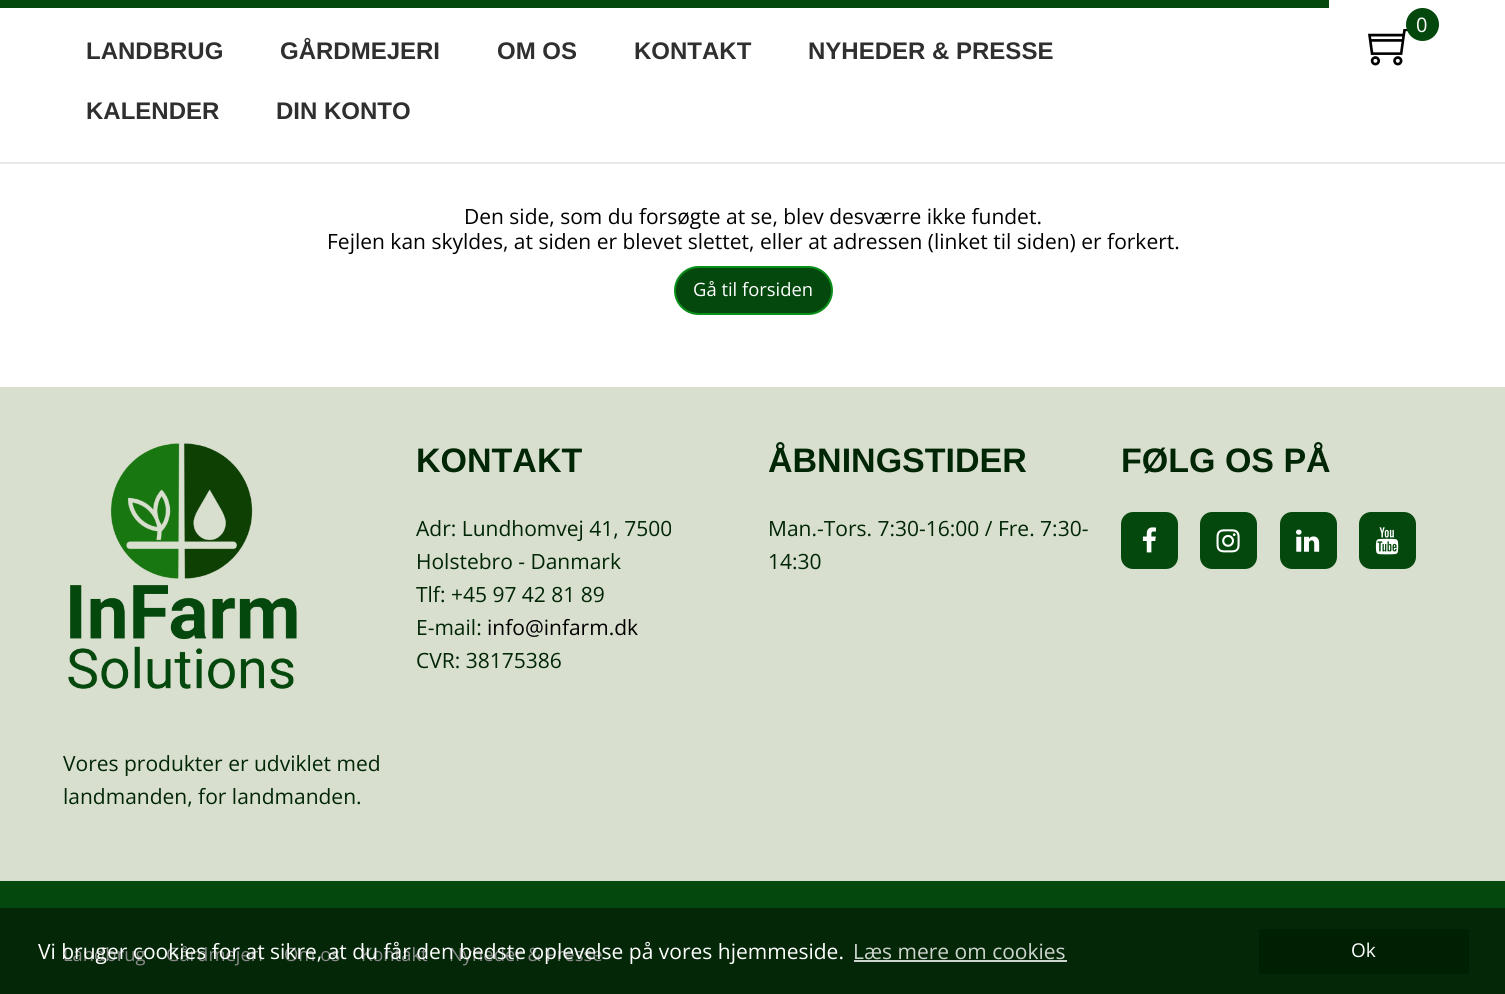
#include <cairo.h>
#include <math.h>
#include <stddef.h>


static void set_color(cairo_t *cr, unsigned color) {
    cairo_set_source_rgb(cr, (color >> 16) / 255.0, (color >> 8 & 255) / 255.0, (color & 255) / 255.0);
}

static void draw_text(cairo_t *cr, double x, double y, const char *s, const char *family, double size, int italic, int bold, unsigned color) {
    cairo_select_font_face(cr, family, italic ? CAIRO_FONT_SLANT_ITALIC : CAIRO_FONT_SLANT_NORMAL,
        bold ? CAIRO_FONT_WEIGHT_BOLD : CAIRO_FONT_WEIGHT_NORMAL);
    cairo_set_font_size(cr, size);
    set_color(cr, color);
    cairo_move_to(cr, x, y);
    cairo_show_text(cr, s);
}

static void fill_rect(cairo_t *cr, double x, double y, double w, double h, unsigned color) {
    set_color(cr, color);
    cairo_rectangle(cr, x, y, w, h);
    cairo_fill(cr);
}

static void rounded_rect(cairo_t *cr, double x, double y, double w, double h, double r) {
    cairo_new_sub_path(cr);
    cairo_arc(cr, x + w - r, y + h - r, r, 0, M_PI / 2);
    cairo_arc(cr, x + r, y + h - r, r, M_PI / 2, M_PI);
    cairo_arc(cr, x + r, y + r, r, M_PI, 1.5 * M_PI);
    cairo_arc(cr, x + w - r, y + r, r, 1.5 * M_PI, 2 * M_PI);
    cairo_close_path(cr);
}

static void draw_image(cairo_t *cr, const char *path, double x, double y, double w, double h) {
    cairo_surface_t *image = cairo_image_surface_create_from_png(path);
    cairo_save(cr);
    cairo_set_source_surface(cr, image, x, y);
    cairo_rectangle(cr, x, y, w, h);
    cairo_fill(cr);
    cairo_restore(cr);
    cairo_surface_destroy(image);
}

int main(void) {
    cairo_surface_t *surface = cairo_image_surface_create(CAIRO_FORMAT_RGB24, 1505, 994);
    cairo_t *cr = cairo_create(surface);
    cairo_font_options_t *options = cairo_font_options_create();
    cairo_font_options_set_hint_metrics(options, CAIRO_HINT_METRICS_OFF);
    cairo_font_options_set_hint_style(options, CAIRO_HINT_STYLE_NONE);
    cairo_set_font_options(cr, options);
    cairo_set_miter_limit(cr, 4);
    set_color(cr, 0xFFFFFF);
    cairo_paint(cr);
    fill_rect(cr, 0, 0, 1329, 8, 0x05480D);
    fill_rect(cr, 0, 162, 1505, 2, 0xEAEAEA);
    draw_image(cr, "assets/img1.png", 1368, 29, 40, 37);
    set_color(cr, 0x05480D);
    cairo_arc(cr, 1422.5, 24.5, 16.5, 0, 2 * M_PI);
    cairo_fill(cr);
    draw_text(cr, 1416, 32, "0", "Open Sans", 20, 0, 0, 0xFFFFFF);
    draw_text(cr, 86, 59, "LANDBRUG", "Liberation Sans", 24, 0, 1, 0x2F2F2F);
    draw_text(cr, 280, 59, "GÅRDMEJERI", "Liberation Sans", 24, 0, 1, 0x2F2F2F);
    draw_text(cr, 497, 59, "OM OS", "Liberation Sans", 24, 0, 1, 0x2F2F2F);
    draw_text(cr, 634, 59, "KONTAKT", "Liberation Sans", 24, 0, 1, 0x2F2F2F);
    draw_text(cr, 808, 59, "NYHEDER & PRESSE", "Liberation Sans", 24, 0, 1, 0x2F2F2F);
    draw_text(cr, 86, 119, "KALENDER", "Liberation Sans", 24, 0, 1, 0x2F2F2F);
    draw_text(cr, 276, 119, "DIN KONTO", "Liberation Sans", 24, 0, 1, 0x2F2F2F);
    draw_text(cr, 464, 224, "Den side, som du forsøgte at se, blev desværre ikke fundet.", "Open Sans", 21, 0, 0, 0x000000);
    draw_text(cr, 327, 249, "Fejlen kan skyldes, at siden er blevet slettet, eller at adressen (linket til siden) er forkert.", "Open Sans", 21, 0, 0, 0x000000);
    set_color(cr, 0x05480D);
    rounded_rect(cr, 675, 267, 157, 47, 23.5);
    cairo_fill_preserve(cr);
    set_color(cr, 0x0A901A);
    cairo_stroke(cr);
    draw_text(cr, 693, 296, "Gå til forsiden", "Open Sans", 18.4, 0, 0, 0xFFFFFF);
    fill_rect(cr, 0, 387, 1505, 494, 0xD9DFCE);
    draw_text(cr, 416, 472, "KONTAKT", "Liberation Sans", 34, 0, 1, 0x002605);
    draw_text(cr, 416, 536, "Adr: Lundhomvej 41, 7500", "Open Sans", 21, 0, 0, 0x002605);
    draw_text(cr, 416, 569, "Holstebro - Danmark", "Open Sans", 21, 0, 0, 0x002605);
    draw_text(cr, 416, 602, "Tlf: +45 97 42 81 89", "Open Sans", 21, 0, 0, 0x002605);
    draw_text(cr, 416, 635, "E-mail:", "Open Sans", 21, 0, 0, 0x002605);
    draw_text(cr, 487, 635, "info@infarm.dk", "Open Sans", 21, 0, 0, 0x000000);
    draw_text(cr, 416, 668, "CVR: 38175386", "Open Sans", 21, 0, 0, 0x002605);
    draw_text(cr, 768, 472, "ÅBNINGSTIDER", "Liberation Sans", 34, 0, 1, 0x002605);
    draw_text(cr, 768, 536, "Man.-Tors. 7:30-16:00 / Fre. 7:30-", "Open Sans", 21, 0, 0, 0x002605);
    draw_text(cr, 768, 569, "14:30", "Open Sans", 21, 0, 0, 0x002605);
    draw_text(cr, 1121, 472, "FØLG OS PÅ", "Liberation Sans", 34, 0, 1, 0x002605);
    set_color(cr, 0x05480D);
    rounded_rect(cr, 1121, 512, 57, 57, 12);
    cairo_fill(cr);
    draw_image(cr, "assets/img2.png", 1142, 527, 14, 26);
    rounded_rect(cr, 1200, 512, 57, 57, 12);
    cairo_fill(cr);
    draw_image(cr, "assets/img3.png", 1216, 529, 24, 24);
    rounded_rect(cr, 1280, 512, 57, 57, 12);
    cairo_fill(cr);
    draw_image(cr, "assets/img4.png", 1296, 529, 24, 23);
    rounded_rect(cr, 1359, 512, 57, 57, 12);
    cairo_fill(cr);
    draw_image(cr, "assets/img5.png", 1375, 527, 24, 28);
    draw_image(cr, "assets/img6.png", 68, 443, 229, 246);
    draw_text(cr, 63, 771, "Vores produkter er udviklet med", "Open Sans", 21, 0, 0, 0x002605);
    draw_text(cr, 63, 804, "landmanden, for landmanden.", "Open Sans", 21, 0, 0, 0x002605);
    fill_rect(cr, 0, 881, 1505, 27, 0x05480D);
    fill_rect(cr, 0, 908, 1505, 86, 0x032707);
    draw_text(cr, 63, 961, "Landbrug", "Open Sans", 18.4, 0, 0, 0x8A8A8A);
    draw_text(cr, 166, 961, "Gårdmejeri", "Open Sans", 18.4, 0, 0, 0x8A8A8A);
    draw_text(cr, 284, 961, "Om os", "Open Sans", 18.4, 0, 0, 0x8A8A8A);
    draw_text(cr, 361, 961, "Kontakt", "Open Sans", 18.4, 0, 0, 0x8A8A8A);
    draw_text(cr, 449, 961, "Nyheder & Presse", "Open Sans", 18.4, 0, 0, 0x8A8A8A);
    draw_text(cr, 38, 959, "Vi bruger cookies for at sikre, at du får den bedste oplevelse på vores hjemmeside.", "Open Sans", 21, 0, 0, 0xFFFFFF);
    draw_text(cr, 853, 959, "Læs mere om cookies", "Open Sans", 21, 0, 0, 0xCDD4CD);
    fill_rect(cr, 854, 960, 213, 2, 0xCDD4CD);
    fill_rect(cr, 1259, 929, 210, 45, 0x002003);
    draw_text(cr, 1351, 957, "Ok", "Open Sans", 19, 0, 0, 0xFFFFFF);
    cairo_surface_write_to_png(surface, "output.png");
    cairo_font_options_destroy(options);
    cairo_destroy(cr);
    cairo_surface_destroy(surface);
    return 0;
}
